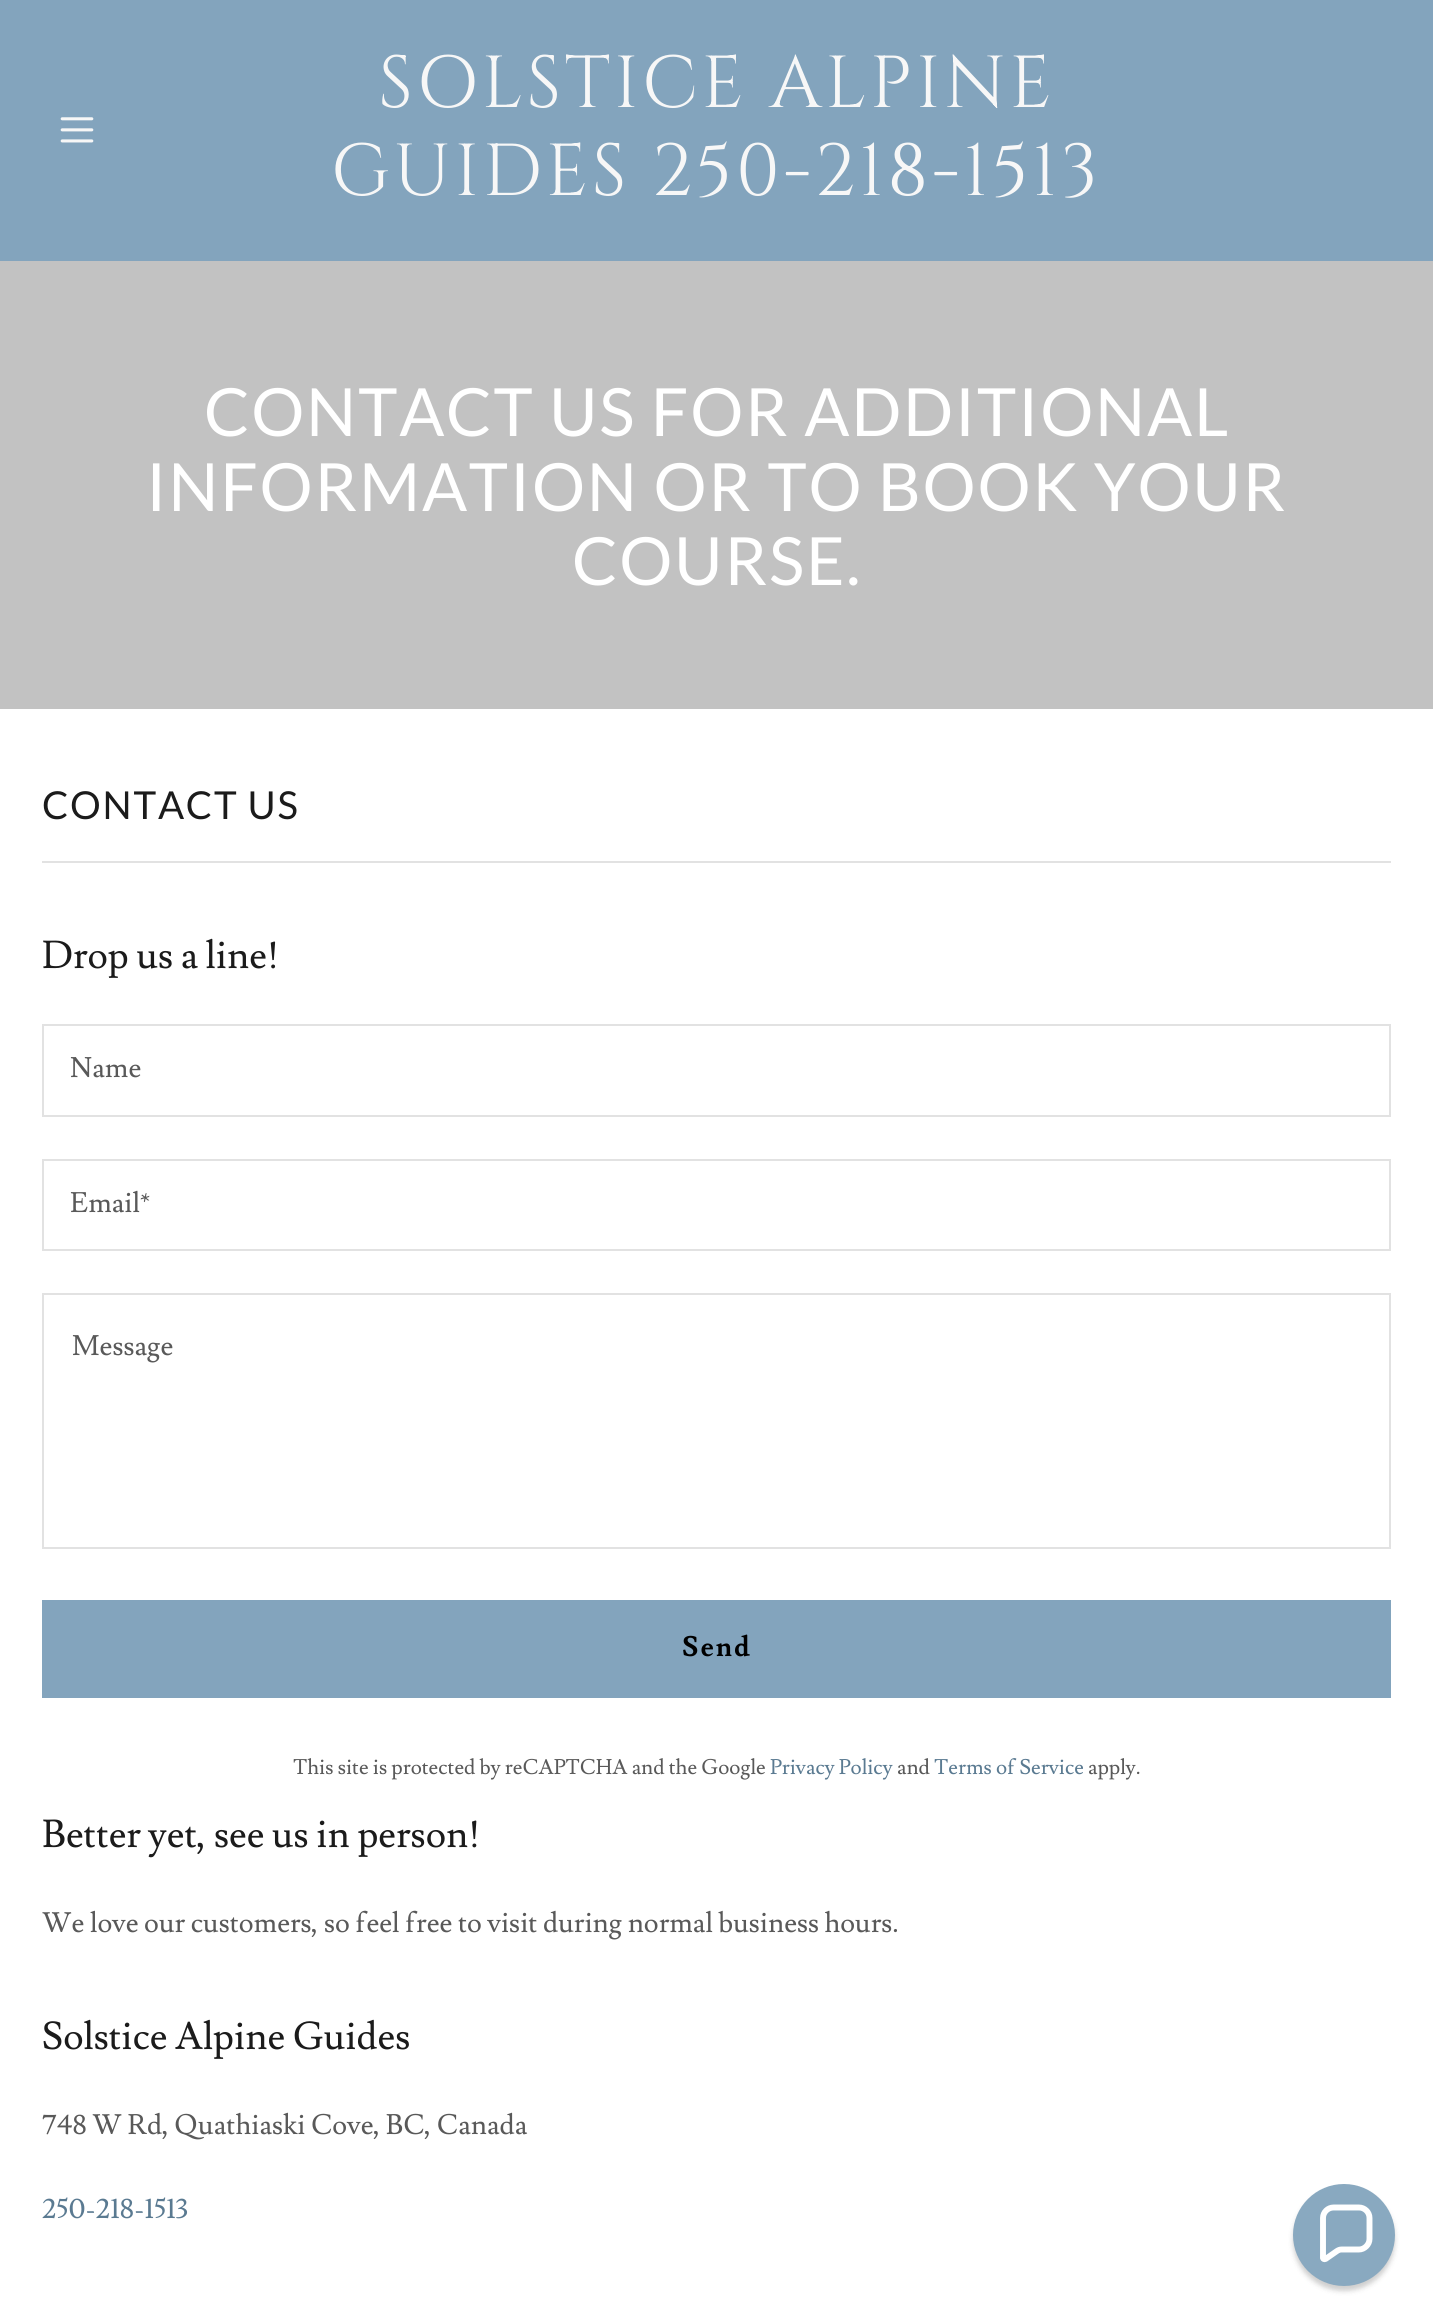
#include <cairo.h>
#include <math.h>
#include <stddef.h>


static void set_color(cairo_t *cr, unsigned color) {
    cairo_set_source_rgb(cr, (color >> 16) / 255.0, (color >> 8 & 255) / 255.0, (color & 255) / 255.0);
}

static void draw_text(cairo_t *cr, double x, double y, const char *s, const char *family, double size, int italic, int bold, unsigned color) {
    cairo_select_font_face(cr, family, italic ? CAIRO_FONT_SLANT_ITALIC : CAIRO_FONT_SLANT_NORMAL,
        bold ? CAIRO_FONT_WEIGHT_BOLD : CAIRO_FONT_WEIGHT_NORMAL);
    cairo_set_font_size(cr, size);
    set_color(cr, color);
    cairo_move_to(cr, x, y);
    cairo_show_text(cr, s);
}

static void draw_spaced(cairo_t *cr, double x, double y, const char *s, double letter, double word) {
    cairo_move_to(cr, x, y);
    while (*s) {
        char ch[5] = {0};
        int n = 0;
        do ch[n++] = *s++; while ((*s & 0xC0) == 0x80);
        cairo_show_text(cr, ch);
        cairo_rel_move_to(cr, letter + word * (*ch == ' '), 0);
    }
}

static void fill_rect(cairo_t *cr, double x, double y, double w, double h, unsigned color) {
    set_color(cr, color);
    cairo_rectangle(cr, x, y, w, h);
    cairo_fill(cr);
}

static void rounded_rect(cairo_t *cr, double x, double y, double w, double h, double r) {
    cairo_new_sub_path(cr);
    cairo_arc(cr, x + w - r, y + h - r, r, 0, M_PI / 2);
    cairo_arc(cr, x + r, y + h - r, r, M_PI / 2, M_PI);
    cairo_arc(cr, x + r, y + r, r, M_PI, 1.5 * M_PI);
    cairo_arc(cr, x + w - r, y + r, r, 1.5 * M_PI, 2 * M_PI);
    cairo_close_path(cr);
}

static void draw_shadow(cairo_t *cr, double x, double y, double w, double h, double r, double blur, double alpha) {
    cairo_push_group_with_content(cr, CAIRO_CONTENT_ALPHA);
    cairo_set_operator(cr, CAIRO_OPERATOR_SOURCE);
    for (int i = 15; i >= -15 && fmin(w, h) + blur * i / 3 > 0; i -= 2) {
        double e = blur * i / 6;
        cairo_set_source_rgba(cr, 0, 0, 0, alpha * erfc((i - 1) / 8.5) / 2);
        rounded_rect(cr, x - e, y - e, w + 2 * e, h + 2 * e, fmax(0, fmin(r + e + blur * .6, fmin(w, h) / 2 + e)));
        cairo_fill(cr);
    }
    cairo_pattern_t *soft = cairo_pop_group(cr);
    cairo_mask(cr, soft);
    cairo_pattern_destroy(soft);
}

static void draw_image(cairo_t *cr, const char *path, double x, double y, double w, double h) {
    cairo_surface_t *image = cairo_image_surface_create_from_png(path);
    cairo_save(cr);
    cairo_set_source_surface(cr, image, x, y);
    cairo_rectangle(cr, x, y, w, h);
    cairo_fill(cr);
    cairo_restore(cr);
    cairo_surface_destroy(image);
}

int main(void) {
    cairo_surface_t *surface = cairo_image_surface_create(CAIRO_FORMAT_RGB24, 1433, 2324);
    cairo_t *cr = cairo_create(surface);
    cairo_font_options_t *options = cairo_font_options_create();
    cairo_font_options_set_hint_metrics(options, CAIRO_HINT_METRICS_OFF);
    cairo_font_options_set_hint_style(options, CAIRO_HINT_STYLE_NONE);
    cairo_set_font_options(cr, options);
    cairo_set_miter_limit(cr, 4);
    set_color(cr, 0xFFFFFF);
    cairo_paint(cr);
    fill_rect(cr, 0, 0, 1433, 261, 0x83A4BD);
    draw_image(cr, "assets/img1.png", 60, 117, 34, 26);
    cairo_select_font_face(cr, "Cinzel", CAIRO_FONT_SLANT_NORMAL, CAIRO_FONT_WEIGHT_NORMAL);
    cairo_set_font_size(cr, 73.5);
    set_color(cr, 0xF7F7F7);
    draw_spaced(cr, 378, 107, "SOLSTICE ALPINE", 3.5, 0);
    draw_spaced(cr, 331, 195, "GUIDES 250-218-1513", 3.5, 0);
    fill_rect(cr, 0, 261, 1433, 448, 0xC2C2C2);
    cairo_select_font_face(cr, "Lato", CAIRO_FONT_SLANT_NORMAL, CAIRO_FONT_WEIGHT_NORMAL);
    cairo_set_font_size(cr, 66.5);
    set_color(cr, 0xFFFFFF);
    draw_spaced(cr, 204, 436, "CONTACT US FOR ADDITIONAL", 1.75, 0);
    draw_spaced(cr, 146, 511, "INFORMATION OR TO BOOK YOUR", 1.75, 0);
    draw_spaced(cr, 572, 585, "COURSE.", 1.75, 0);
    cairo_set_font_size(cr, 38.5);
    set_color(cr, 0x1B1B1B);
    draw_spaced(cr, 42, 819, "CONTACT US", 1.75, 0);
    fill_rect(cr, 42, 861, 1349, 2, 0xE2E2E2);
    draw_text(cr, 42, 968, "Drop us a line!", "Lusitana", 38.5, 0, 0, 0x1B1B1B);
    cairo_rectangle(cr, 43, 1025, 1347, 91);
    set_color(cr, 0xE2E2E2);
    cairo_stroke(cr);
    draw_text(cr, 70, 1077, "Name", "Lusitana", 28, 0, 0, 0x595959);
    cairo_rectangle(cr, 43, 1160, 1347, 90);
    set_color(cr, 0xE2E2E2);
    cairo_stroke(cr);
    draw_text(cr, 70, 1212, "Email*", "Lusitana", 28, 0, 0, 0x595959);
    cairo_rectangle(cr, 43, 1294, 1347, 254);
    set_color(cr, 0xE2E2E2);
    cairo_stroke(cr);
    draw_text(cr, 72, 1355, "Message", "Lusitana", 28, 0, 0, 0x595959);
    fill_rect(cr, 42, 1600, 1349, 98, 0x83A4BD);
    cairo_select_font_face(cr, "Lusitana", CAIRO_FONT_SLANT_NORMAL, CAIRO_FONT_WEIGHT_BOLD);
    set_color(cr, 0x000000);
    draw_spaced(cr, 682, 1656, "Send", 2, 0);
    draw_text(cr, 293, 1774, "This site is protected by reCAPTCHA and the Google", "Lusitana", 21, 0, 0, 0x595959);
    draw_text(cr, 770, 1774, "Privacy Policy", "Lusitana", 21, 0, 0, 0x5A7A91);
    draw_text(cr, 897, 1774, "and", "Lusitana", 21, 0, 0, 0x595959);
    draw_text(cr, 934, 1774, "Terms of Service", "Lusitana", 21, 0, 0, 0x5A7A91);
    draw_text(cr, 1088, 1774, "apply.", "Lusitana", 21, 0, 0, 0x595959);
    draw_text(cr, 42, 1847, "Better yet, see us in person!", "Lusitana", 38.5, 0, 0, 0x1B1B1B);
    draw_text(cr, 42, 1932, "We love our customers, so feel free to visit during normal business hours.", "Lusitana", 28, 0, 0, 0x595959);
    draw_text(cr, 42, 2049, "Solstice Alpine Guides", "Lusitana", 38.5, 0, 0, 0x1B1B1B);
    draw_text(cr, 42, 2134, "748 W Rd, Quathiaski Cove, BC, Canada", "Lusitana", 28, 0, 0, 0x595959);
    draw_text(cr, 42, 2218, "250-218-1513", "Lusitana", 28, 0, 0, 0x5A7A91);
    set_color(cr, 0x0D0D0D);
    draw_shadow(cr, 1293, 2189, 102, 102, 51, 2.5, 0.2);
    set_color(cr, 0x89A9C0);
    cairo_arc(cr, 1344, 2235, 51, 0, 2 * M_PI);
    cairo_fill(cr);
    cairo_new_path(cr);
    cairo_move_to(cr, 1359, 2207.5);
    cairo_line_to(cr, 1333.5, 2207.5);
    cairo_curve_to(cr, 1328, 2207.5, 1323, 2212, 1323, 2218);
    cairo_line_to(cr, 1323, 2258);
    cairo_curve_to(cr, 1323, 2259, 1324.5, 2259.5, 1325.5, 2259);
    cairo_line_to(cr, 1337, 2251);
    cairo_curve_to(cr, 1338.5, 2250, 1340, 2249.5, 1341.5, 2249.5);
    cairo_line_to(cr, 1359, 2249.5);
    cairo_curve_to(cr, 1364.5, 2249.5, 1369.5, 2244.5, 1369.5, 2239);
    cairo_line_to(cr, 1369.5, 2218);
    cairo_curve_to(cr, 1369.5, 2212, 1364.5, 2207.5, 1359, 2207.5);
    cairo_close_path(cr);
    set_color(cr, 0xFFFFFF);
    cairo_set_line_width(cr, 5.9);
    cairo_stroke(cr);
    cairo_surface_write_to_png(surface, "output.png");
    cairo_font_options_destroy(options);
    cairo_destroy(cr);
    cairo_surface_destroy(surface);
    return 0;
}
